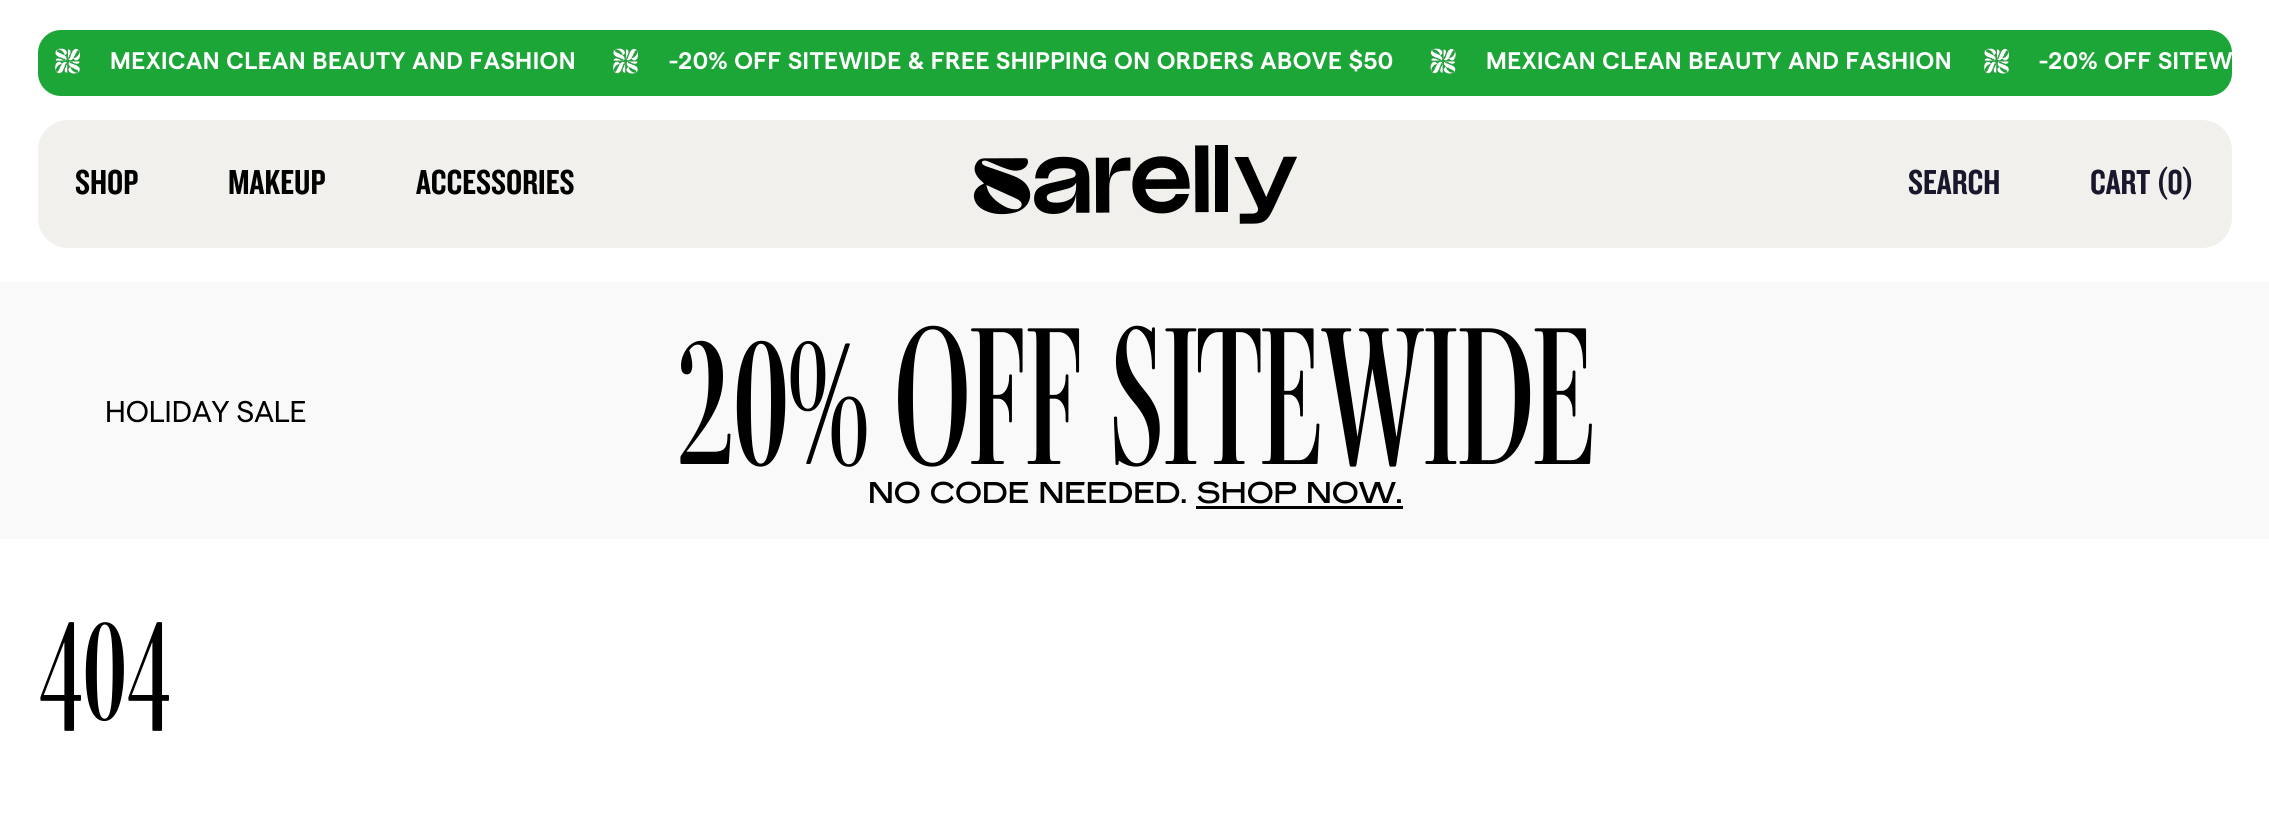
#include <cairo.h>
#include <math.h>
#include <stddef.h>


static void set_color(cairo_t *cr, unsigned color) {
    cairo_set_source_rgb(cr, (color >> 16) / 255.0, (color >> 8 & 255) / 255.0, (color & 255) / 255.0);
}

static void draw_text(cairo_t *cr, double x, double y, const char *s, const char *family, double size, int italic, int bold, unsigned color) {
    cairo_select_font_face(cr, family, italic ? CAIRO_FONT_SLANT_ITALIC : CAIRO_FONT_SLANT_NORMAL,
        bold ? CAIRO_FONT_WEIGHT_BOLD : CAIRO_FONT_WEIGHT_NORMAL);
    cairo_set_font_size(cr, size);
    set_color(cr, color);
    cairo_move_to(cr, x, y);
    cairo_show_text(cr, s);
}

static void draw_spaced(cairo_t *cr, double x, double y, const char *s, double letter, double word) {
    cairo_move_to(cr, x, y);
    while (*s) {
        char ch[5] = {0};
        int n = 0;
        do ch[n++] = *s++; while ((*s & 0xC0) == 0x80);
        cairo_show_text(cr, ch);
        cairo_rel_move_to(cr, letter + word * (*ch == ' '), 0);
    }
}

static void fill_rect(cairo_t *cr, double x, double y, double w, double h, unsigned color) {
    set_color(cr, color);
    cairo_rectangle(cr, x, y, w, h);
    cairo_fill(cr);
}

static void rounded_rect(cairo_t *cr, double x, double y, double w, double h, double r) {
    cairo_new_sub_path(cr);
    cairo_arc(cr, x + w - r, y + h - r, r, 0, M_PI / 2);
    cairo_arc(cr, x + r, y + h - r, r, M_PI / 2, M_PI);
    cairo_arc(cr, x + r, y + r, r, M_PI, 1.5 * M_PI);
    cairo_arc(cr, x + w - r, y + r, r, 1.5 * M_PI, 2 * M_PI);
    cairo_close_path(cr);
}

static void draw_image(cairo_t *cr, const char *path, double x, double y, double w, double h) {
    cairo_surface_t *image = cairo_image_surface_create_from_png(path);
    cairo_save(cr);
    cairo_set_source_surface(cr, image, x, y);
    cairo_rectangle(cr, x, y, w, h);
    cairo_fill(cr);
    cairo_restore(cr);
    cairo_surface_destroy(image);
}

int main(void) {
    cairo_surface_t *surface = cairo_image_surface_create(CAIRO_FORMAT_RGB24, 2269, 830);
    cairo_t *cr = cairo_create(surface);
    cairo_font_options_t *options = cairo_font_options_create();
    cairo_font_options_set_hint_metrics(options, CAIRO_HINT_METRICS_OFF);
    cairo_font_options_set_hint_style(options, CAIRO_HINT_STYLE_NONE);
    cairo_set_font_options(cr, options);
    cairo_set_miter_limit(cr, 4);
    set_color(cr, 0xFFFFFF);
    cairo_paint(cr);
    set_color(cr, 0x1CA638);
    rounded_rect(cr, 38, 30, 2194, 66, 23);
    cairo_fill(cr);
    draw_image(cr, "assets/img1.png", 55, 48, 26, 26);
    cairo_select_font_face(cr, "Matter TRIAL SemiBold", CAIRO_FONT_SLANT_NORMAL, CAIRO_FONT_WEIGHT_NORMAL);
    cairo_set_font_size(cr, 24);
    set_color(cr, 0xFFFFFF);
    draw_spaced(cr, 110, 69, "MEXICAN CLEAN BEAUTY AND FASHION", 0.48, 0);
    draw_image(cr, "assets/img2.png", 613, 48, 26, 26);
    draw_spaced(cr, 669, 69, "-20% OFF SITEWIDE & FREE SHIPPING ON ORDERS ABOVE $50", 0.48, 0);
    draw_image(cr, "assets/img3.png", 1430, 48, 26, 26);
    draw_spaced(cr, 1486, 69, "MEXICAN CLEAN BEAUTY AND FASHION", 0.48, 0);
    draw_image(cr, "assets/img1.png", 1984, 48, 26, 26);
    draw_spaced(cr, 2039, 69, "-20% OFF SITEW", 0.48, 0);
    set_color(cr, 0xF1F0ED);
    rounded_rect(cr, 38, 120, 2194, 128, 30);
    cairo_fill(cr);
    draw_text(cr, 75, 194, "SHOP", "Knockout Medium", 36, 0, 0, 0x000000);
    draw_text(cr, 228, 194, "MAKEUP", "Knockout Medium", 36, 0, 0, 0x000000);
    draw_text(cr, 416, 194, "ACCESSORIES", "Knockout Medium", 36, 0, 0, 0x000000);
    draw_image(cr, "assets/img4.png", 973, 145, 324, 79);
    draw_text(cr, 1908, 194, "SEARCH", "Knockout Medium", 36, 0, 0, 0x1A172C);
    draw_text(cr, 2090, 194, "CART (0)", "Knockout Medium", 36, 0, 0, 0x1A172C);
    fill_rect(cr, 0, 282, 2269, 257, 0xF9F9F9);
    draw_text(cr, 105, 422, "HOLIDAY SALE", "Matter TRIAL", 30, 0, 0, 0x000000);
    cairo_select_font_face(cr, "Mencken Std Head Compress", CAIRO_FONT_SLANT_NORMAL, CAIRO_FONT_WEIGHT_NORMAL);
    cairo_set_font_size(cr, 201);
    draw_spaced(cr, 676, 464, "20% OFF SITEWIDE", -2, 0);
    draw_text(cr, 868, 503, "NO CODE NEEDED. SHOP NOW.", "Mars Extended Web", 30, 0, 0, 0x000000);
    fill_rect(cr, 1196, 506, 207, 3, 0x000000);
    cairo_select_font_face(cr, "Mencken Std Head Compress", CAIRO_FONT_SLANT_NORMAL, CAIRO_FONT_WEIGHT_NORMAL);
    cairo_set_font_size(cr, 158);
    draw_spaced(cr, 38, 719, "404", -1.5, 0);
    cairo_surface_write_to_png(surface, "output.png");
    cairo_font_options_destroy(options);
    cairo_destroy(cr);
    cairo_surface_destroy(surface);
    return 0;
}
